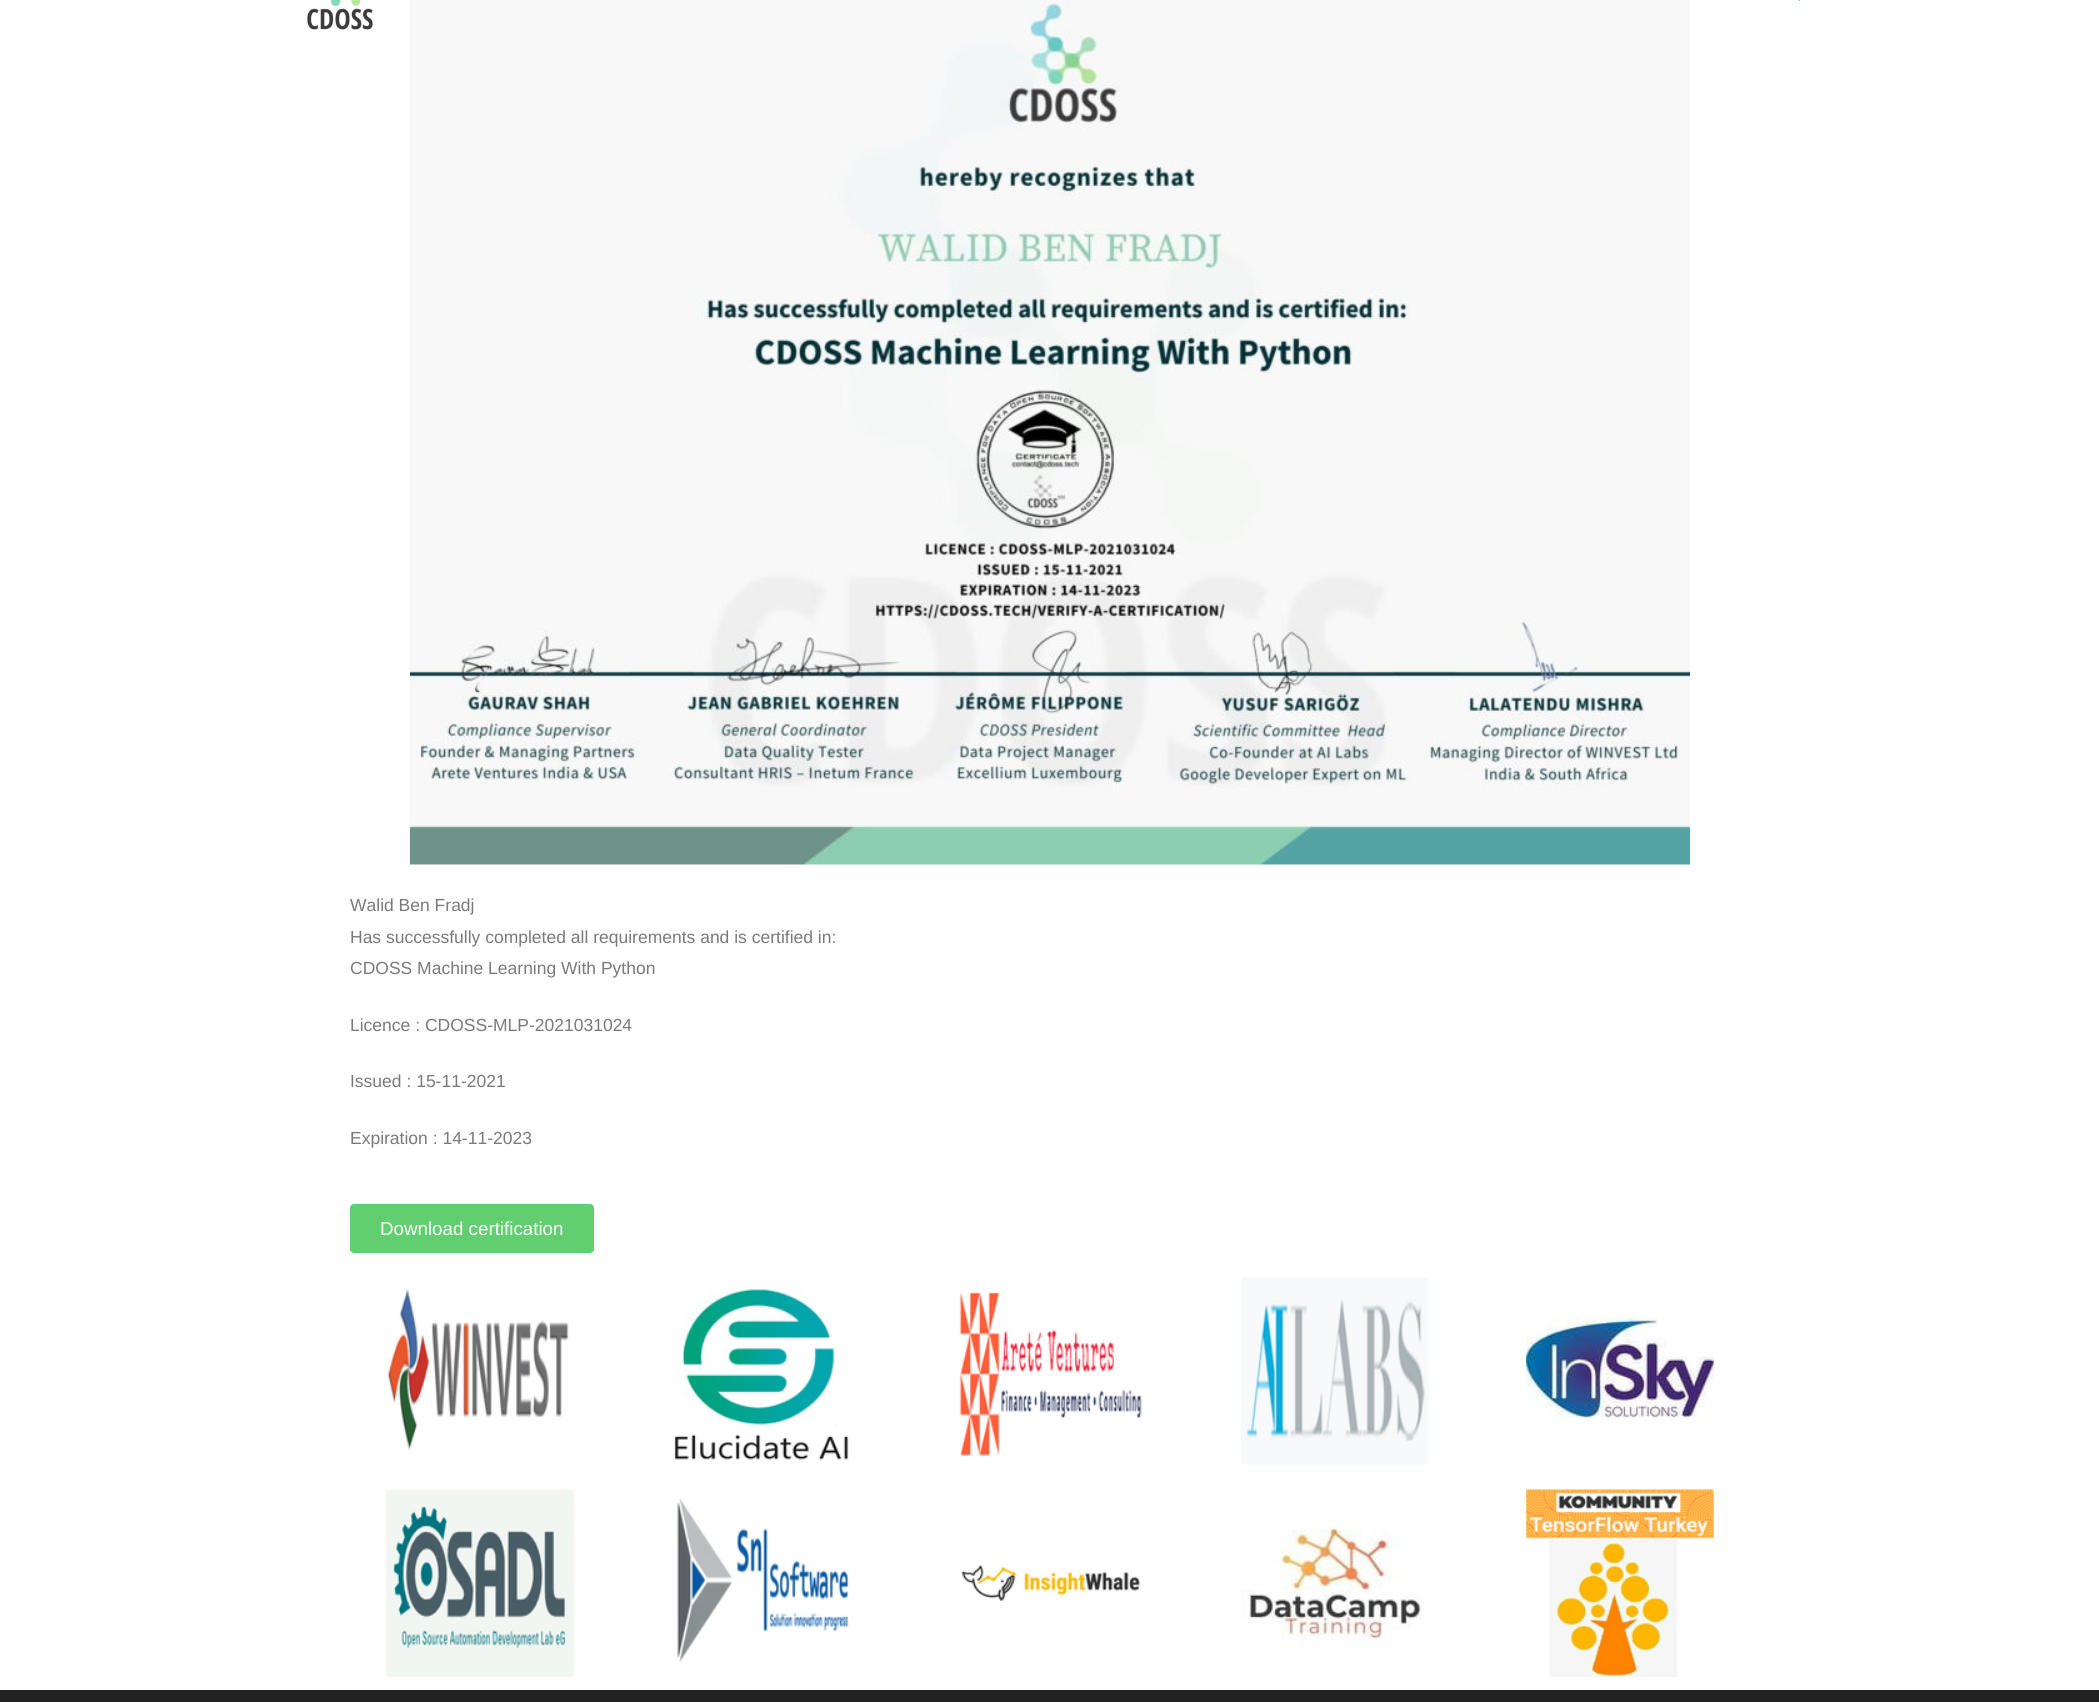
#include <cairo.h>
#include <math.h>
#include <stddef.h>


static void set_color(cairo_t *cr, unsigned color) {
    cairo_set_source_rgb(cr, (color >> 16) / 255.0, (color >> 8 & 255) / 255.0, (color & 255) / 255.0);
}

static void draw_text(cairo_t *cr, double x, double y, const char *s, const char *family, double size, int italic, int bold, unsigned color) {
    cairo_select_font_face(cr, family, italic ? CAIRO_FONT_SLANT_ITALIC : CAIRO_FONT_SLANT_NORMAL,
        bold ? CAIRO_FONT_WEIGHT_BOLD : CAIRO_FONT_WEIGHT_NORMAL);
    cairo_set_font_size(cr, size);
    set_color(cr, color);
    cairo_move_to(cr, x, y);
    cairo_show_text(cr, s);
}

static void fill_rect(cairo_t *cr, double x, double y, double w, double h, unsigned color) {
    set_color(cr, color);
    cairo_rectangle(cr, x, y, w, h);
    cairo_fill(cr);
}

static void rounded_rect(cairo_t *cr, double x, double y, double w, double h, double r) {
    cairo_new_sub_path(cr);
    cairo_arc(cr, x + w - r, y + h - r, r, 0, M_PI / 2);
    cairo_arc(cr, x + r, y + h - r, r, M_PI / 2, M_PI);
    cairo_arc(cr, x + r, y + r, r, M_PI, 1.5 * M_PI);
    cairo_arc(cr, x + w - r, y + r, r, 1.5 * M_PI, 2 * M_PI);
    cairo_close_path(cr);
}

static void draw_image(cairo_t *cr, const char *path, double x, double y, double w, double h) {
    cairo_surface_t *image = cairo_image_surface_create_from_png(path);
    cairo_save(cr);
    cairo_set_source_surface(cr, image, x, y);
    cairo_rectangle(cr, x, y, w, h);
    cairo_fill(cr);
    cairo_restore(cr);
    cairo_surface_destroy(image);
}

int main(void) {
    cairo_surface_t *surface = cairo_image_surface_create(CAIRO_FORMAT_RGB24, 2099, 1702);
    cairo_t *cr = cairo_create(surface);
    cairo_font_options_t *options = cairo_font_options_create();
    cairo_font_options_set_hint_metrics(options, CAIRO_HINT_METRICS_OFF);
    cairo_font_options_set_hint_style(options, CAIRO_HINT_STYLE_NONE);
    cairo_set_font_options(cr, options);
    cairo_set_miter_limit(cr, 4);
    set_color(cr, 0xFFFFFF);
    cairo_paint(cr);
    draw_image(cr, "assets/img1.png", 307, 0, 66, 30);
    draw_image(cr, "assets/img2.png", 1798, 0, 2, 1);
    draw_image(cr, "assets/img3.png", 410, 0, 1280, 865);
    draw_text(cr, 350, 911, "Walid Ben Fradj", "Liberation Sans", 17.5, 0, 0, 0x7A7A7A);
    draw_text(cr, 350, 943, "Has successfully completed all requirements and is certified in:", "Liberation Sans", 17.5, 0, 0, 0x7A7A7A);
    draw_text(cr, 350, 974, "CDOSS Machine Learning With Python", "Liberation Sans", 17.5, 0, 0, 0x7A7A7A);
    draw_text(cr, 350, 1031, "Licence : CDOSS-MLP-2021031024", "Liberation Sans", 17.5, 0, 0, 0x7A7A7A);
    draw_text(cr, 350, 1087, "Issued : 15-11-2021", "Liberation Sans", 17.5, 0, 0, 0x7A7A7A);
    draw_text(cr, 350, 1144, "Expiration : 14-11-2023", "Liberation Sans", 17.5, 0, 0, 0x7A7A7A);
    set_color(cr, 0x61CE70);
    rounded_rect(cr, 350, 1204, 244, 49, 4);
    cairo_fill(cr);
    draw_text(cr, 380, 1235, "Download certification", "Liberation Sans", 18.75, 0, 0, 0xFFFFFF);
    draw_image(cr, "assets/img4.png", 387, 1288, 182, 163);
    draw_image(cr, "assets/img5.png", 386, 1489, 188, 188);
    draw_image(cr, "assets/img6.png", 674, 1287, 175, 173);
    draw_image(cr, "assets/img7.png", 677, 1498, 172, 164);
    draw_image(cr, "assets/img8.png", 959, 1292, 183, 164);
    draw_image(cr, "assets/img9.png", 961, 1564, 180, 37);
    draw_image(cr, "assets/img10.png", 1241, 1277, 188, 188);
    draw_image(cr, "assets/img11.png", 1241, 1526, 181, 123);
    draw_image(cr, "assets/img12.png", 1526, 1317, 188, 102);
    draw_image(cr, "assets/img13.png", 1526, 1489, 188, 188);
    fill_rect(cr, 0, 1690, 2099, 12, 0x222222);
    cairo_surface_write_to_png(surface, "output.png");
    cairo_font_options_destroy(options);
    cairo_destroy(cr);
    cairo_surface_destroy(surface);
    return 0;
}
